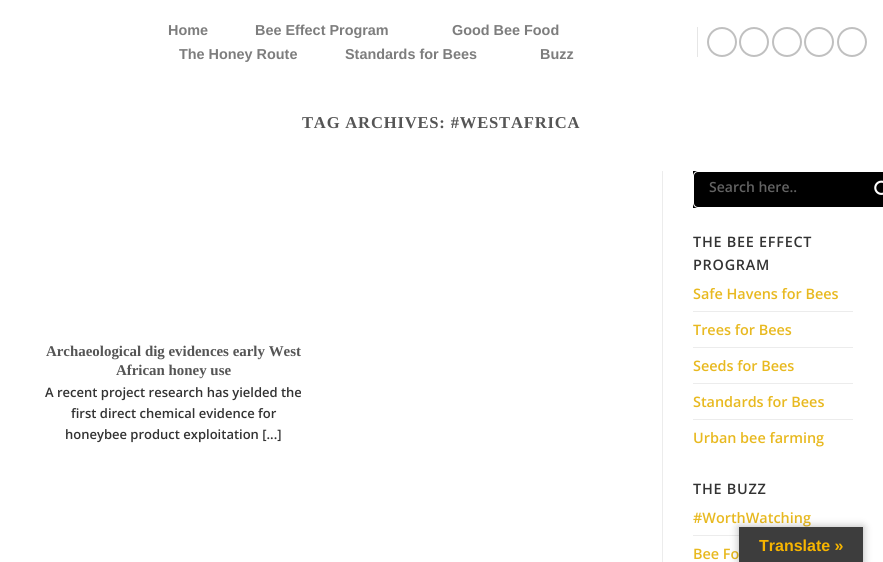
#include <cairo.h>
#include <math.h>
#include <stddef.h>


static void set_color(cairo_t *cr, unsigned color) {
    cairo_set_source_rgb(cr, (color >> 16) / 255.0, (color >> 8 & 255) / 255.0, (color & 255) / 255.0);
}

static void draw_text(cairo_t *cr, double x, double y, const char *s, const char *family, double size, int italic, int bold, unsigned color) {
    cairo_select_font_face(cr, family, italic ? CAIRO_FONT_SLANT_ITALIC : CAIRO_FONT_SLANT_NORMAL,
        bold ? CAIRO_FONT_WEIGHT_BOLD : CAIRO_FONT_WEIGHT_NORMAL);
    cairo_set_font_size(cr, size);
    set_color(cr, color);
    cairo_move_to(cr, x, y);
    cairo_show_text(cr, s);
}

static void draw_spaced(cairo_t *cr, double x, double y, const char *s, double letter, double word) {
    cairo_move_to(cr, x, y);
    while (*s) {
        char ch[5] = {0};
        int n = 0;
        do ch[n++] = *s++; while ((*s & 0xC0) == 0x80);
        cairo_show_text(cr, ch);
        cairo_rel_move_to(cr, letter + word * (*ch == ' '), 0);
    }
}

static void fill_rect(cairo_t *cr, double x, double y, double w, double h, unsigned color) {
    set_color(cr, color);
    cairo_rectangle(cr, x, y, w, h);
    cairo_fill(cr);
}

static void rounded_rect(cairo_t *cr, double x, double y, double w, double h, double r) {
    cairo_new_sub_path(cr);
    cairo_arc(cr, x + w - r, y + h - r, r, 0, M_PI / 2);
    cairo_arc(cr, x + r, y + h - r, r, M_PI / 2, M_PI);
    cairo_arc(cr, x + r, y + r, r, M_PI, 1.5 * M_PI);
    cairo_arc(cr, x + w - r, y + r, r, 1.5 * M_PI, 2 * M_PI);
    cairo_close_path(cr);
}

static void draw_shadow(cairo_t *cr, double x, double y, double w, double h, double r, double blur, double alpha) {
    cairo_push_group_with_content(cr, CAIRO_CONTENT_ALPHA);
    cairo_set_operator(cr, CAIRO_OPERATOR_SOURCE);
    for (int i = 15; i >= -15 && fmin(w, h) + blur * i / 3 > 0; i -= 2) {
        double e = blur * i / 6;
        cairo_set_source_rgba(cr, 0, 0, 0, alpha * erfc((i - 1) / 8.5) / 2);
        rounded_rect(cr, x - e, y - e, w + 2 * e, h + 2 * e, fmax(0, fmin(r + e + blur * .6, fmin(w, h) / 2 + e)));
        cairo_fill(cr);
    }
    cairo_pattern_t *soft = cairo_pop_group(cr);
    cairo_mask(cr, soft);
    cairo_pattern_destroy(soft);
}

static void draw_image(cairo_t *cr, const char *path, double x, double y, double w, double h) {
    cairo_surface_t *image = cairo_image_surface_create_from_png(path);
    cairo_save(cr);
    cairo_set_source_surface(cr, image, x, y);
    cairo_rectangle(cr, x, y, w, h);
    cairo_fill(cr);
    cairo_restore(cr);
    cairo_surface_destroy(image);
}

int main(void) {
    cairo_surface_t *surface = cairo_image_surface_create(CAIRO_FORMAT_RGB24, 883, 562);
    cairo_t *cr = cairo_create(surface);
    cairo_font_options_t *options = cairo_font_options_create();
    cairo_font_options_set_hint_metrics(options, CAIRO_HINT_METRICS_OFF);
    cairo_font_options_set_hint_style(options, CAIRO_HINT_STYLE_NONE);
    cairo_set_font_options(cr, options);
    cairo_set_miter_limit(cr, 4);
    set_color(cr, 0xFFFFFF);
    cairo_paint(cr);
    draw_text(cr, 168, 35, "Home", "Liberation Sans", 14.4, 0, 1, 0x7D7D7D);
    draw_text(cr, 255, 35, "Bee Effect Program", "Liberation Sans", 14.4, 0, 1, 0x7D7D7D);
    draw_text(cr, 452, 35, "Good Bee Food", "Liberation Sans", 14.4, 0, 1, 0x7D7D7D);
    draw_text(cr, 179, 59, "The Honey Route", "Liberation Sans", 14.4, 0, 1, 0x7D7D7D);
    draw_text(cr, 345, 59, "Standards for Bees", "Liberation Sans", 14.4, 0, 1, 0x7D7D7D);
    draw_text(cr, 540, 59, "Buzz", "Liberation Sans", 14.4, 0, 1, 0x7D7D7D);
    fill_rect(cr, 697, 27, 1, 30, 0xE6E6E6);
    cairo_new_path(cr);
    cairo_arc(cr, 722, 42, 14, 0, 2 * M_PI);
    set_color(cr, 0xC0C0C0);
    cairo_stroke(cr);
    cairo_arc(cr, 754, 42, 14, 0, 2 * M_PI);
    cairo_stroke(cr);
    cairo_arc(cr, 787, 42, 14, 0, 2 * M_PI);
    cairo_stroke(cr);
    cairo_arc(cr, 819, 42, 14, 0, 2 * M_PI);
    cairo_stroke(cr);
    cairo_arc(cr, 852, 42, 14, 0, 2 * M_PI);
    cairo_stroke(cr);
    cairo_select_font_face(cr, "Liberation Serif", CAIRO_FONT_SLANT_NORMAL, CAIRO_FONT_WEIGHT_BOLD);
    cairo_set_font_size(cr, 16.6);
    set_color(cr, 0x555555);
    draw_spaced(cr, 302, 128, "TAG ARCHIVES: #WESTAFRICA", 0.8, 0);
    draw_text(cr, 46, 356, "Archaeological dig evidences early West", "Liberation Serif", 14.9, 0, 1, 0x555555);
    draw_text(cr, 116, 375, "African honey use", "Liberation Serif", 14.9, 0, 1, 0x555555);
    draw_text(cr, 45, 397, "A recent project research has yielded the", "Open Sans SemiBold", 13, 0, 0, 0x333333);
    draw_text(cr, 71, 418, "first direct chemical evidence for", "Open Sans SemiBold", 13, 0, 0, 0x333333);
    draw_text(cr, 65, 439, "honeybee product exploitation [...]", "Open Sans SemiBold", 13, 0, 0, 0x333333);
    fill_rect(cr, 662, 171, 1, 391, 0xECECEC);
    fill_rect(cr, 693, 171, 190, 37, 0x000000);
    rounded_rect(cr, 693.5, 171.5, 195, 36, 4.5);
    set_color(cr, 0xFFFFFF);
    cairo_set_line_width(cr, 1);
    cairo_stroke(cr);
    draw_text(cr, 709, 192, "Search here..", "Open Sans SemiBold", 14, 0, 0, 0x636363);
    draw_image(cr, "assets/img1.png", 874, 180, 9, 15);
    cairo_set_font_size(cr, 14.4);
    set_color(cr, 0x333333);
    draw_spaced(cr, 693, 247, "THE BEE EFFECT", 0.75, 0);
    draw_spaced(cr, 693, 270, "PROGRAM", 0.75, 0);
    draw_text(cr, 693, 299, "Safe Havens for Bees", "Open Sans SemiBold", 14.4, 0, 0, 0xE8B920);
    fill_rect(cr, 693, 311, 160, 1, 0xECECEC);
    draw_text(cr, 693, 335, "Trees for Bees", "Open Sans SemiBold", 14.4, 0, 0, 0xE8B920);
    fill_rect(cr, 693, 347, 160, 1, 0xECECEC);
    draw_text(cr, 693, 371, "Seeds for Bees", "Open Sans SemiBold", 14.4, 0, 0, 0xE8B920);
    fill_rect(cr, 693, 383, 160, 1, 0xECECEC);
    draw_text(cr, 693, 407, "Standards for Bees", "Open Sans SemiBold", 14.4, 0, 0, 0xE8B920);
    fill_rect(cr, 693, 419, 160, 1, 0xECECEC);
    draw_text(cr, 693, 443, "Urban bee farming", "Open Sans SemiBold", 14.4, 0, 0, 0xE8B920);
    set_color(cr, 0x333333);
    draw_spaced(cr, 693, 494, "THE BUZZ", 0.75, 0);
    draw_text(cr, 693, 523, "#WorthWatching", "Open Sans SemiBold", 14.4, 0, 0, 0xE8B920);
    fill_rect(cr, 693, 535, 46, 1, 0xECECEC);
    draw_text(cr, 693, 559, "Bee Fo", "Open Sans SemiBold", 14.4, 0, 0, 0xE8B920);
    set_color(cr, 0x000000);
    draw_shadow(cr, 739, 527, 124, 35, 0, 4.5, 0.3);
    fill_rect(cr, 739, 527, 124, 35, 0x3D3D3D);
    draw_text(cr, 759, 551, "Translate »", "Liberation Sans", 16, 0, 1, 0xF7B500);
    cairo_surface_write_to_png(surface, "output.png");
    cairo_font_options_destroy(options);
    cairo_destroy(cr);
    cairo_surface_destroy(surface);
    return 0;
}
